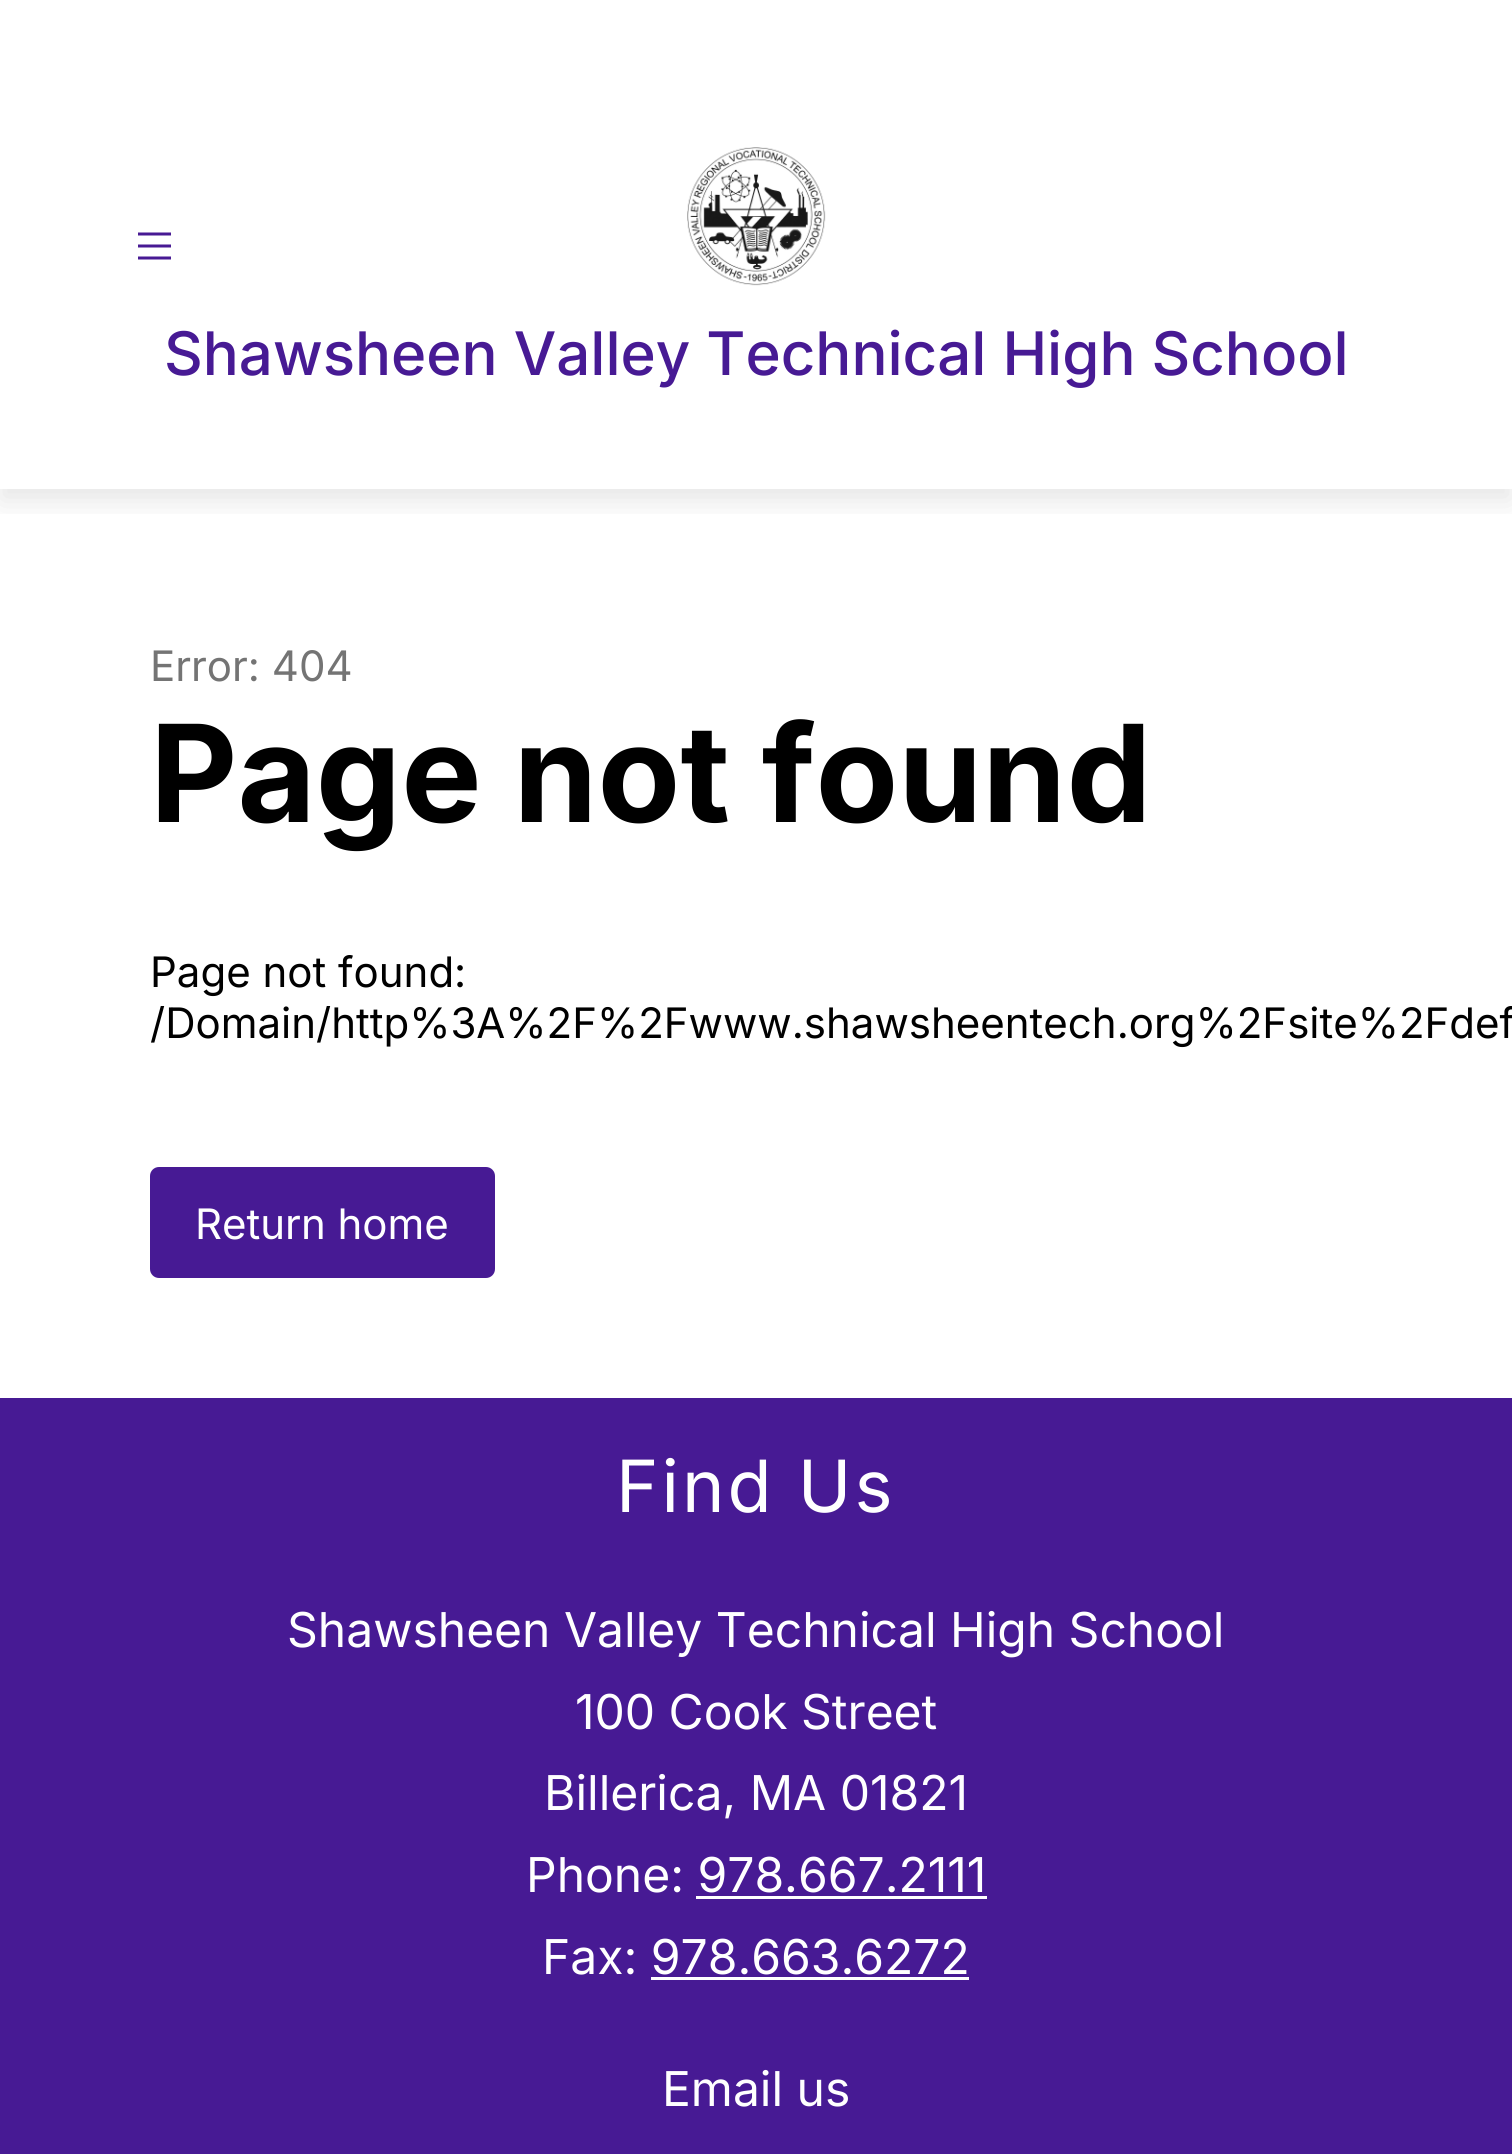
#include <cairo.h>
#include <math.h>
#include <stddef.h>


static void set_color(cairo_t *cr, unsigned color) {
    cairo_set_source_rgb(cr, (color >> 16) / 255.0, (color >> 8 & 255) / 255.0, (color & 255) / 255.0);
}

static void draw_text(cairo_t *cr, double x, double y, const char *s, const char *family, double size, int italic, int bold, unsigned color) {
    cairo_select_font_face(cr, family, italic ? CAIRO_FONT_SLANT_ITALIC : CAIRO_FONT_SLANT_NORMAL,
        bold ? CAIRO_FONT_WEIGHT_BOLD : CAIRO_FONT_WEIGHT_NORMAL);
    cairo_set_font_size(cr, size);
    set_color(cr, color);
    cairo_move_to(cr, x, y);
    cairo_show_text(cr, s);
}

static void draw_spaced(cairo_t *cr, double x, double y, const char *s, double letter, double word) {
    cairo_move_to(cr, x, y);
    while (*s) {
        char ch[5] = {0};
        int n = 0;
        do ch[n++] = *s++; while ((*s & 0xC0) == 0x80);
        cairo_show_text(cr, ch);
        cairo_rel_move_to(cr, letter + word * (*ch == ' '), 0);
    }
}

static void fill_rect(cairo_t *cr, double x, double y, double w, double h, unsigned color) {
    set_color(cr, color);
    cairo_rectangle(cr, x, y, w, h);
    cairo_fill(cr);
}

static void rounded_rect(cairo_t *cr, double x, double y, double w, double h, double r) {
    cairo_new_sub_path(cr);
    cairo_arc(cr, x + w - r, y + h - r, r, 0, M_PI / 2);
    cairo_arc(cr, x + r, y + h - r, r, M_PI / 2, M_PI);
    cairo_arc(cr, x + r, y + r, r, M_PI, 1.5 * M_PI);
    cairo_arc(cr, x + w - r, y + r, r, 1.5 * M_PI, 2 * M_PI);
    cairo_close_path(cr);
}

static void draw_shadow(cairo_t *cr, double x, double y, double w, double h, double r, double blur, double alpha) {
    cairo_push_group_with_content(cr, CAIRO_CONTENT_ALPHA);
    cairo_set_operator(cr, CAIRO_OPERATOR_SOURCE);
    for (int i = 15; i >= -15 && fmin(w, h) + blur * i / 3 > 0; i -= 2) {
        double e = blur * i / 6;
        cairo_set_source_rgba(cr, 0, 0, 0, alpha * erfc((i - 1) / 8.5) / 2);
        rounded_rect(cr, x - e, y - e, w + 2 * e, h + 2 * e, fmax(0, fmin(r + e + blur * .6, fmin(w, h) / 2 + e)));
        cairo_fill(cr);
    }
    cairo_pattern_t *soft = cairo_pop_group(cr);
    cairo_mask(cr, soft);
    cairo_pattern_destroy(soft);
}

static void draw_image(cairo_t *cr, const char *path, double x, double y, double w, double h) {
    cairo_surface_t *image = cairo_image_surface_create_from_png(path);
    cairo_save(cr);
    cairo_set_source_surface(cr, image, x, y);
    cairo_rectangle(cr, x, y, w, h);
    cairo_fill(cr);
    cairo_restore(cr);
    cairo_surface_destroy(image);
}

int main(void) {
    cairo_surface_t *surface = cairo_image_surface_create(CAIRO_FORMAT_RGB24, 1512, 2154);
    cairo_t *cr = cairo_create(surface);
    cairo_font_options_t *options = cairo_font_options_create();
    cairo_font_options_set_hint_metrics(options, CAIRO_HINT_METRICS_OFF);
    cairo_font_options_set_hint_style(options, CAIRO_HINT_STYLE_NONE);
    cairo_set_font_options(cr, options);
    cairo_set_miter_limit(cr, 4);
    set_color(cr, 0xFFFFFF);
    cairo_paint(cr);
    cairo_save(cr);
    cairo_rectangle(cr, 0, 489, 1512, 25);
    cairo_clip(cr);
    set_color(cr, 0x000000);
    draw_shadow(cr, 0, 12, 1512, 489, 0, 15, 0.1);
    cairo_restore(cr);
    set_color(cr, 0x471A94);
    cairo_set_fill_rule(cr, CAIRO_FILL_RULE_EVEN_ODD);
    cairo_new_path(cr);
    cairo_move_to(cr, 138, 232.5);
    cairo_line_to(cr, 171, 232.5);
    cairo_line_to(cr, 171, 235.5);
    cairo_line_to(cr, 138, 235.5);
    cairo_close_path(cr);
    cairo_move_to(cr, 138, 244.5);
    cairo_line_to(cr, 171, 244.5);
    cairo_line_to(cr, 171, 247.5);
    cairo_line_to(cr, 138, 247.5);
    cairo_close_path(cr);
    cairo_move_to(cr, 171, 256.5);
    cairo_line_to(cr, 138, 256.5);
    cairo_line_to(cr, 138, 259.5);
    cairo_line_to(cr, 171, 259.5);
    cairo_close_path(cr);
    cairo_fill(cr);
    draw_image(cr, "assets/img1.png", 687, 147, 139, 139);
    draw_text(cr, 164, 375, "Shawsheen Valley Technical High School", "Inter Medium", 60, 0, 0, 0x471A94);
    draw_text(cr, 150, 681, "Error: 404", "Inter", 42, 0, 0, 0x747474);
    draw_text(cr, 150, 822, "Page not found", "Inter", 135, 0, 1, 0x000000);
    draw_text(cr, 150, 987, "Page not found:", "Inter", 42, 0, 0, 0x000000);
    draw_text(cr, 150, 1038, "/Domain/http%3A%2F%2Fwww.shawsheentech.org%2Fsite%2Fdef", "Inter", 42, 0, 0, 0x000000);
    set_color(cr, 0x471A94);
    rounded_rect(cr, 150, 1167, 345, 111, 9);
    cairo_fill(cr);
    draw_text(cr, 195, 1239, "Return home", "Inter", 42, 0, 0, 0xFFFFFF);
    fill_rect(cr, 0, 1398, 1512, 756, 0x471A94);
    cairo_set_font_size(cr, 72);
    set_color(cr, 0xFFFFFF);
    draw_spaced(cr, 616, 1512, "Find Us", 3, 0);
    draw_text(cr, 287, 1647, "Shawsheen Valley Technical High School", "Inter", 48, 0, 0, 0xFFFFFF);
    draw_text(cr, 575, 1729, "100 Cook Street", "Inter", 48, 0, 0, 0xFFFFFF);
    draw_text(cr, 544, 1810, "Billerica, MA 01821", "Inter", 48, 0, 0, 0xFFFFFF);
    draw_text(cr, 526, 1892, "Phone: 978.667.2111", "Inter", 48, 0, 0, 0xFFFFFF);
    fill_rect(cr, 696, 1896, 291, 3, 0xFFFFFF);
    draw_text(cr, 542, 1974, "Fax: 978.663.6272", "Inter", 48, 0, 0, 0xFFFFFF);
    fill_rect(cr, 651, 1977, 318, 3, 0xFFFFFF);
    draw_text(cr, 662, 2106, "Email us", "Inter", 48, 0, 0, 0xFFFFFF);
    cairo_surface_write_to_png(surface, "output.png");
    cairo_font_options_destroy(options);
    cairo_destroy(cr);
    cairo_surface_destroy(surface);
    return 0;
}
